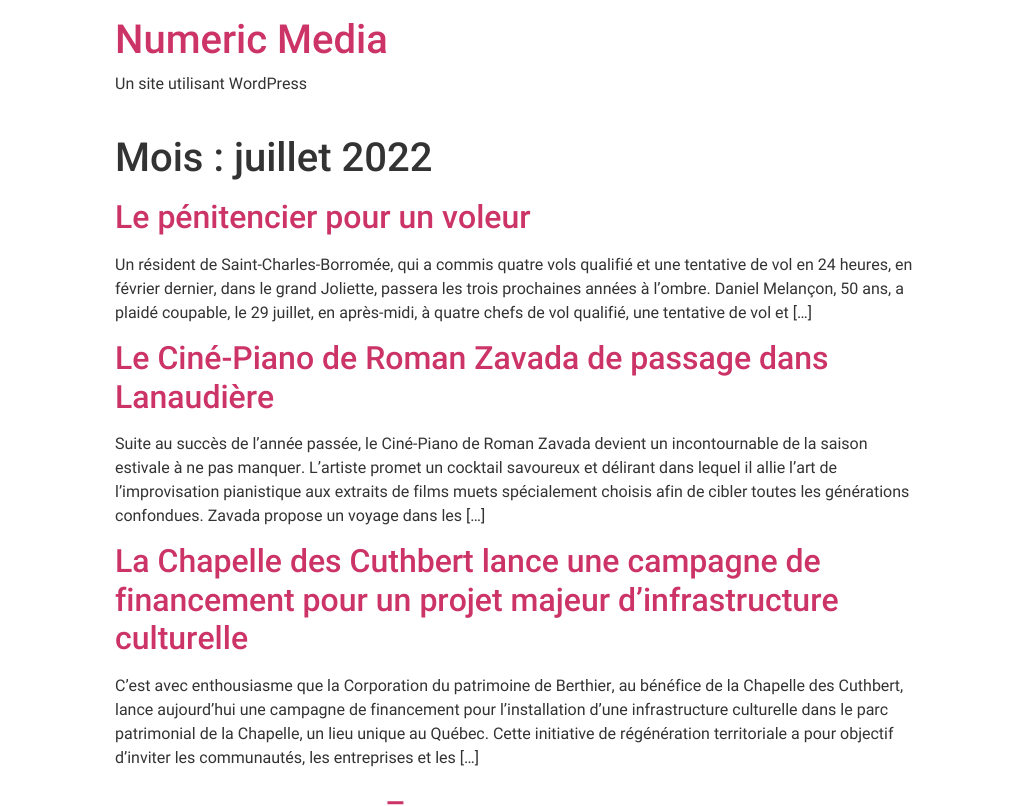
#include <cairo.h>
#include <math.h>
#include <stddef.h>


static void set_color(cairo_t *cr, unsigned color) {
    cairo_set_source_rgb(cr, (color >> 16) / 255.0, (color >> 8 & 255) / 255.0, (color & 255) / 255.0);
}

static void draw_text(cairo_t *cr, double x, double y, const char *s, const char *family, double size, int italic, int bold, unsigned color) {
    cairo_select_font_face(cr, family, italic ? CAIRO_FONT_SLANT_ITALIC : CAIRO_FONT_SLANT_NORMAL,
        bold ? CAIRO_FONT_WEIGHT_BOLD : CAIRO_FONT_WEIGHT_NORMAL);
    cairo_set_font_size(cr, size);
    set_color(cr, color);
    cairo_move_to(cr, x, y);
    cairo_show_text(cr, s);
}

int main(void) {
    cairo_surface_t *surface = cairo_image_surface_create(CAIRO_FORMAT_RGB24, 1030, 806);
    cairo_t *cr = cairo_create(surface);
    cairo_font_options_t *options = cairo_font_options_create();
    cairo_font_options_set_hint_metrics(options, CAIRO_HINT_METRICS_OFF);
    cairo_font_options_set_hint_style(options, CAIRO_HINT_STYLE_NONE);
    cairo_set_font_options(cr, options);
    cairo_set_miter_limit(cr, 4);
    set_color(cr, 0xFFFFFF);
    cairo_paint(cr);
    draw_text(cr, 115, 53, "Numeric Media", "Roboto Medium", 40, 0, 0, 0xCC3366);
    draw_text(cr, 115, 89, "Un site utilisant WordPress", "Roboto", 16, 0, 0, 0x333333);
    draw_text(cr, 115, 171, "Mois : juillet 2022", "Roboto Medium", 40, 0, 0, 0x333333);
    draw_text(cr, 115, 228, "Le pénitencier pour un voleur", "Roboto Medium", 32, 0, 0, 0xCC3366);
    draw_text(cr, 115, 270, "Un résident de Saint-Charles-Borromée, qui a commis quatre vols qualifié et une tentative de vol en 24 heures, en", "Roboto", 16, 0, 0, 0x333333);
    draw_text(cr, 115, 294, "février dernier, dans le grand Joliette, passera les trois prochaines années à l’ombre. Daniel Melançon, 50 ans, a", "Roboto", 16, 0, 0, 0x333333);
    draw_text(cr, 115, 318, "plaidé coupable, le 29 juillet, en après-midi, à quatre chefs de vol qualifié, une tentative de vol et […]", "Roboto", 16, 0, 0, 0x333333);
    draw_text(cr, 115, 369, "Le Ciné-Piano de Roman Zavada de passage dans", "Roboto Medium", 32, 0, 0, 0xCC3366);
    draw_text(cr, 115, 408, "Lanaudière", "Roboto Medium", 32, 0, 0, 0xCC3366);
    draw_text(cr, 115, 449, "Suite au succès de l’année passée, le Ciné-Piano de Roman Zavada devient un incontournable de la saison", "Roboto", 16, 0, 0, 0x333333);
    draw_text(cr, 115, 473, "estivale à ne pas manquer. L’artiste promet un cocktail savoureux et délirant dans lequel il allie l’art de", "Roboto", 16, 0, 0, 0x333333);
    draw_text(cr, 115, 497, "l’improvisation pianistique aux extraits de films muets spécialement choisis afin de cibler toutes les générations", "Roboto", 16, 0, 0, 0x333333);
    draw_text(cr, 115, 521, "confondues. Zavada propose un voyage dans les […]", "Roboto", 16, 0, 0, 0x333333);
    draw_text(cr, 115, 572, "La Chapelle des Cuthbert lance une campagne de", "Roboto Medium", 32, 0, 0, 0xCC3366);
    draw_text(cr, 115, 611, "financement pour un projet majeur d’infrastructure", "Roboto Medium", 32, 0, 0, 0xCC3366);
    draw_text(cr, 115, 649, "culturelle", "Roboto Medium", 32, 0, 0, 0xCC3366);
    draw_text(cr, 115, 691, "C’est avec enthousiasme que la Corporation du patrimoine de Berthier, au bénéfice de la Chapelle des Cuthbert,", "Roboto", 16, 0, 0, 0x333333);
    draw_text(cr, 115, 715, "lance aujourd’hui une campagne de financement pour l’installation d’une infrastructure culturelle dans le parc", "Roboto", 16, 0, 0, 0x333333);
    draw_text(cr, 115, 739, "patrimonial de la Chapelle, un lieu unique au Québec. Cette initiative de régénération territoriale a pour objectif", "Roboto", 16, 0, 0, 0x333333);
    draw_text(cr, 115, 763, "d’inviter les communautés, les entreprises et les […]", "Roboto", 16, 0, 0, 0x333333);
    draw_text(cr, 385, 814, "–", "Roboto Medium", 32, 0, 0, 0xCC3366);
    cairo_surface_write_to_png(surface, "output.png");
    cairo_font_options_destroy(options);
    cairo_destroy(cr);
    cairo_surface_destroy(surface);
    return 0;
}
